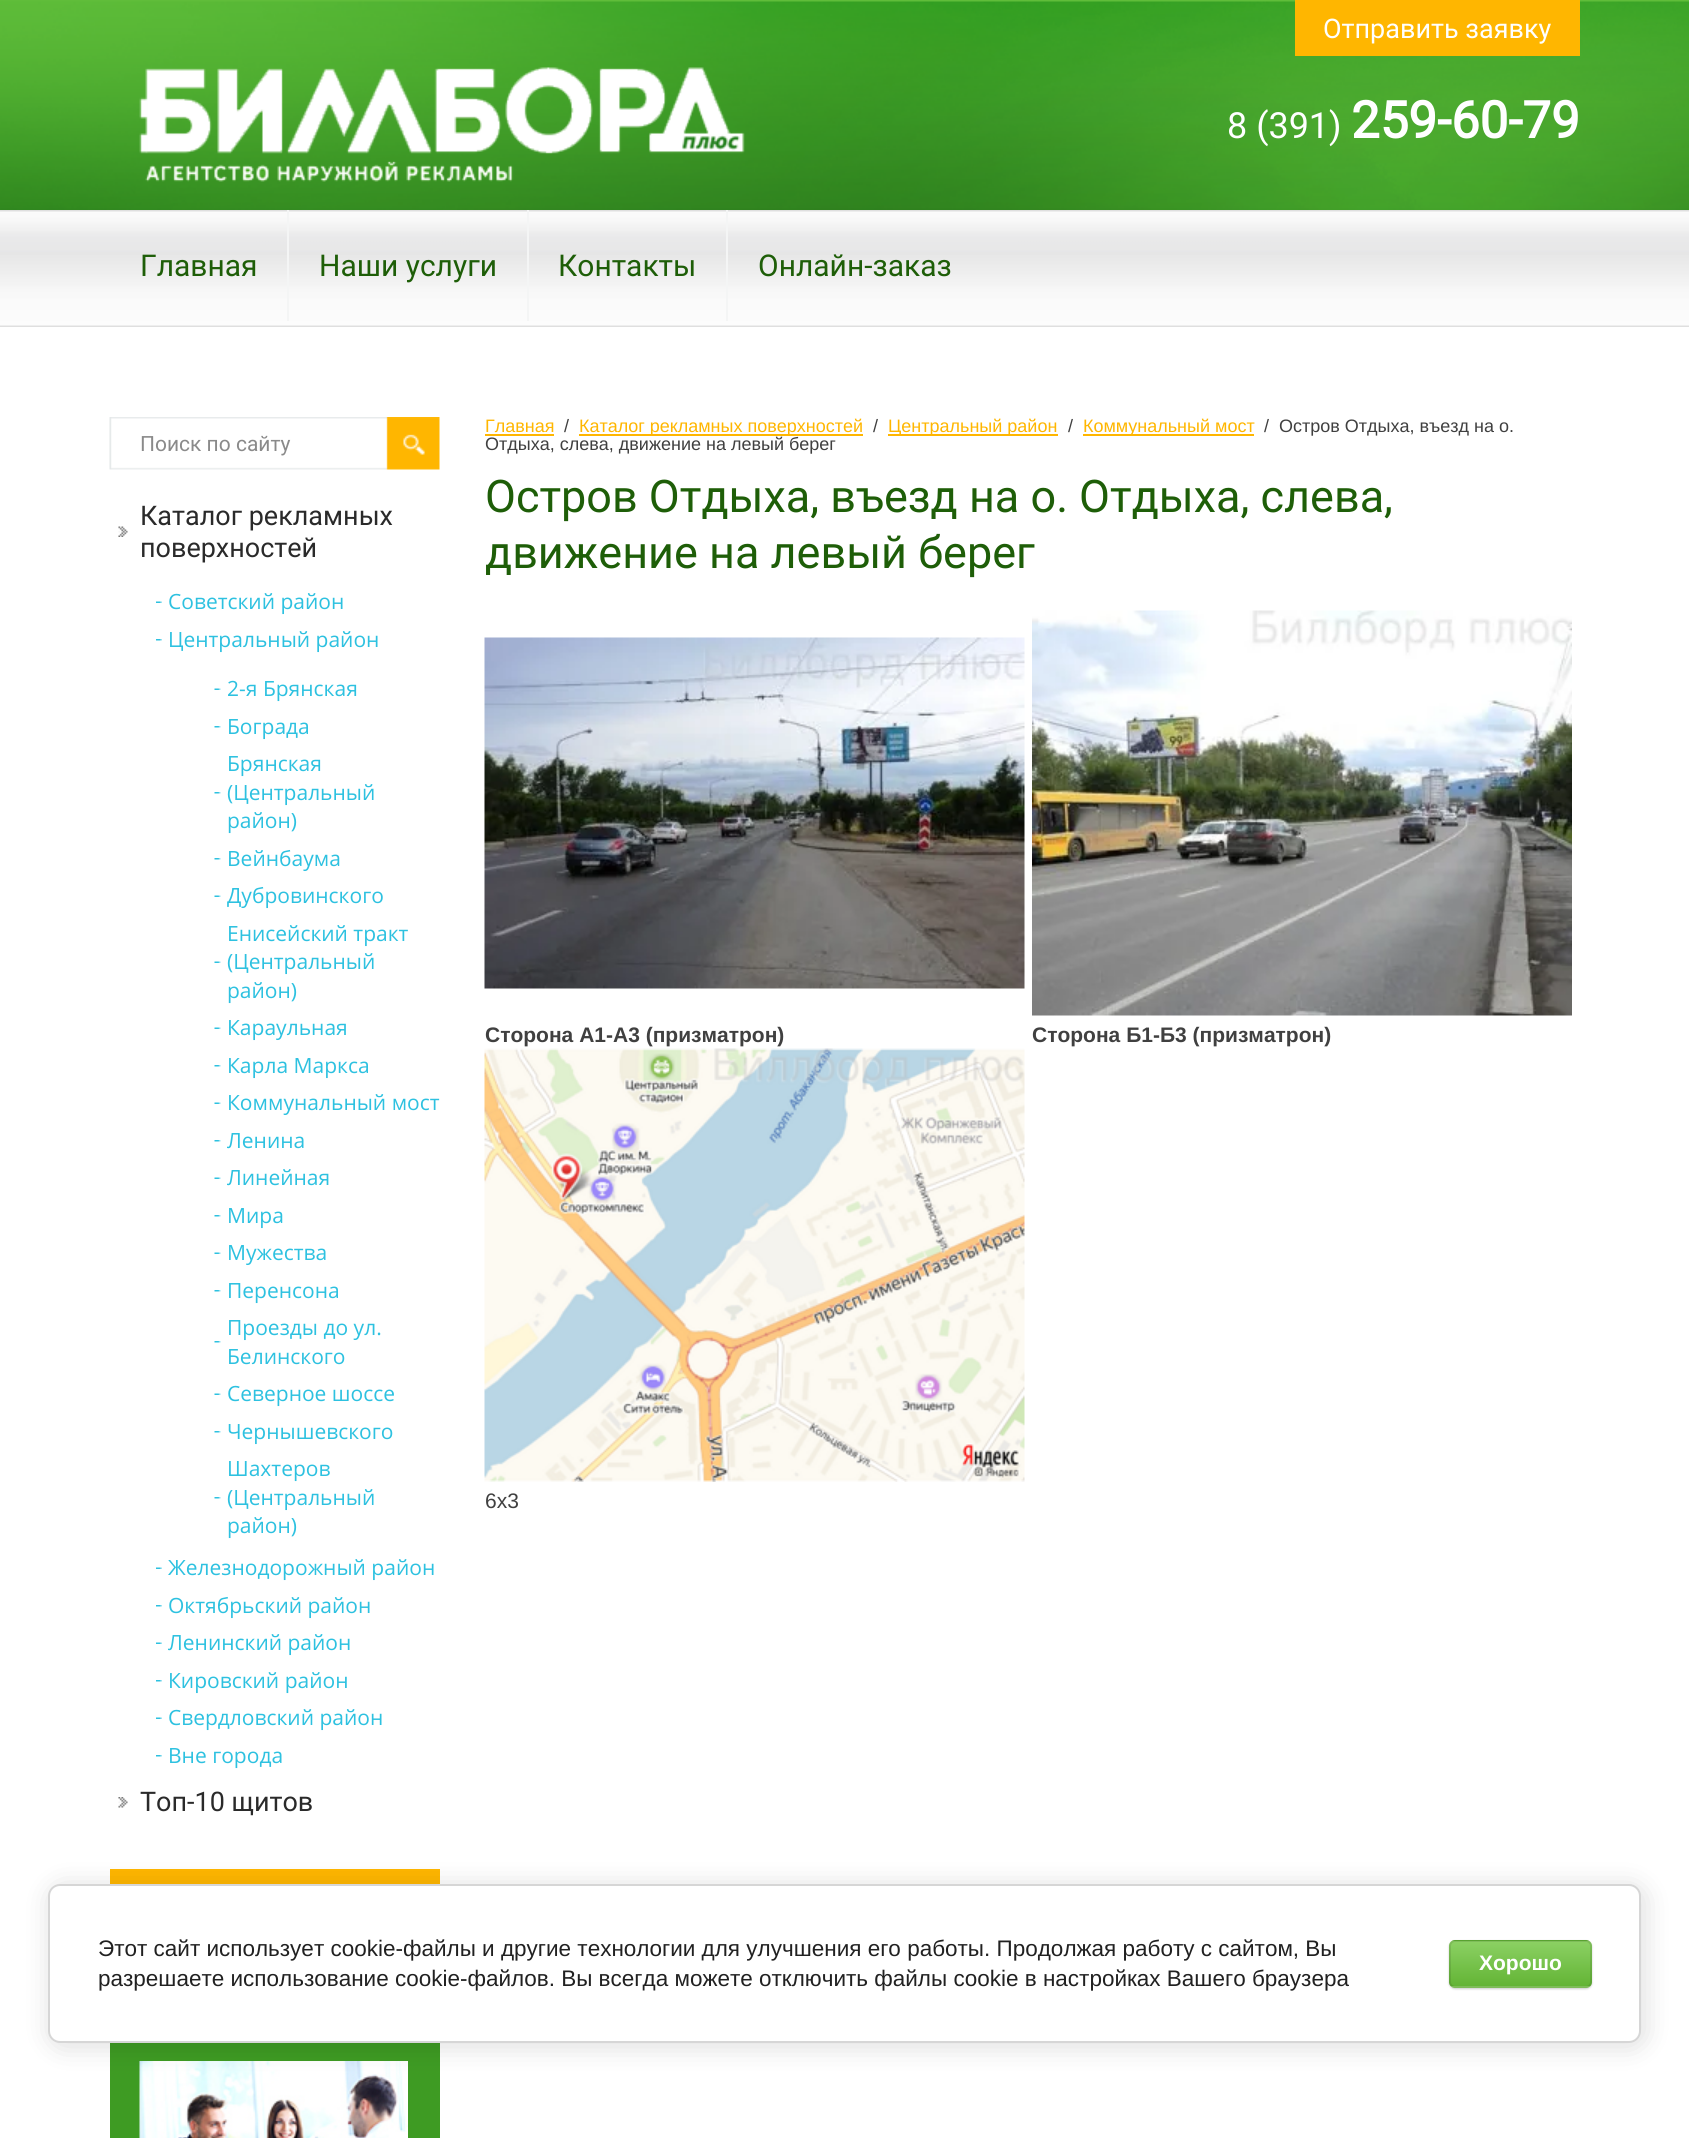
#include <cairo.h>
#include <math.h>
#include <stddef.h>


static void set_color(cairo_t *cr, unsigned color) {
    cairo_set_source_rgb(cr, (color >> 16) / 255.0, (color >> 8 & 255) / 255.0, (color & 255) / 255.0);
}

static void draw_text(cairo_t *cr, double x, double y, const char *s, const char *family, double size, int italic, int bold, unsigned color) {
    cairo_select_font_face(cr, family, italic ? CAIRO_FONT_SLANT_ITALIC : CAIRO_FONT_SLANT_NORMAL,
        bold ? CAIRO_FONT_WEIGHT_BOLD : CAIRO_FONT_WEIGHT_NORMAL);
    cairo_set_font_size(cr, size);
    set_color(cr, color);
    cairo_move_to(cr, x, y);
    cairo_show_text(cr, s);
}

static void fill_rect(cairo_t *cr, double x, double y, double w, double h, unsigned color) {
    set_color(cr, color);
    cairo_rectangle(cr, x, y, w, h);
    cairo_fill(cr);
}

static void rounded_rect(cairo_t *cr, double x, double y, double w, double h, double r) {
    cairo_new_sub_path(cr);
    cairo_arc(cr, x + w - r, y + h - r, r, 0, M_PI / 2);
    cairo_arc(cr, x + r, y + h - r, r, M_PI / 2, M_PI);
    cairo_arc(cr, x + r, y + r, r, M_PI, 1.5 * M_PI);
    cairo_arc(cr, x + w - r, y + r, r, 1.5 * M_PI, 2 * M_PI);
    cairo_close_path(cr);
}

static void draw_shadow(cairo_t *cr, double x, double y, double w, double h, double r, double blur, double alpha) {
    cairo_push_group_with_content(cr, CAIRO_CONTENT_ALPHA);
    cairo_set_operator(cr, CAIRO_OPERATOR_SOURCE);
    for (int i = 15; i >= -15 && fmin(w, h) + blur * i / 3 > 0; i -= 2) {
        double e = blur * i / 6;
        cairo_set_source_rgba(cr, 0, 0, 0, alpha * erfc((i - 1) / 8.5) / 2);
        rounded_rect(cr, x - e, y - e, w + 2 * e, h + 2 * e, fmax(0, fmin(r + e + blur * .6, fmin(w, h) / 2 + e)));
        cairo_fill(cr);
    }
    cairo_pattern_t *soft = cairo_pop_group(cr);
    cairo_mask(cr, soft);
    cairo_pattern_destroy(soft);
}

static void draw_image(cairo_t *cr, const char *path, double x, double y, double w, double h) {
    cairo_surface_t *image = cairo_image_surface_create_from_png(path);
    cairo_save(cr);
    cairo_set_source_surface(cr, image, x, y);
    cairo_rectangle(cr, x, y, w, h);
    cairo_fill(cr);
    cairo_restore(cr);
    cairo_surface_destroy(image);
}

int main(void) {
    cairo_surface_t *surface = cairo_image_surface_create(CAIRO_FORMAT_RGB24, 1689, 2138);
    cairo_t *cr = cairo_create(surface);
    cairo_font_options_t *options = cairo_font_options_create();
    cairo_font_options_set_hint_metrics(options, CAIRO_HINT_METRICS_OFF);
    cairo_font_options_set_hint_style(options, CAIRO_HINT_STYLE_NONE);
    cairo_set_font_options(cr, options);
    cairo_set_miter_limit(cr, 4);
    cairo_pattern_t *gradient;
    set_color(cr, 0xFFFFFF);
    cairo_paint(cr);
    draw_image(cr, "assets/img1.png", 0, 0, 1689, 210);
    fill_rect(cr, 1295, 0, 285, 56, 0xFFB600);
    draw_text(cr, 1323, 38, "Отправить заявку", "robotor", 27, 0, 0, 0xFFFFFF);
    draw_image(cr, "assets/img2.png", 139, 67, 606, 115);
    draw_text(cr, 1227, 138, "8 (391)", "robotor", 36, 0, 0, 0xFFFFFF);
    draw_text(cr, 1351, 138, "259-60-79", "robotor", 51, 0, 1, 0xFFFFFF);
    draw_image(cr, "assets/img3.png", 0, 210, 1689, 117);
    draw_text(cr, 140, 276, "Главная", "robotor", 30, 0, 0, 0x1E5E08);
    fill_rect(cr, 287, 210, 2, 111, 0xF4F5F5);
    draw_text(cr, 319, 276, "Наши услуги", "robotor", 30, 0, 0, 0x1E5E08);
    fill_rect(cr, 527, 210, 2, 111, 0xF4F5F5);
    draw_text(cr, 558, 276, "Контакты", "robotor", 30, 0, 0, 0x1E5E08);
    fill_rect(cr, 726, 210, 2, 111, 0xF4F5F5);
    draw_text(cr, 758, 276, "Онлайн-заказ", "robotor", 30, 0, 0, 0x1E5E08);
    draw_image(cr, "assets/img4.png", 109, 417, 331, 53);
    draw_text(cr, 140, 451, "Поиск по сайту", "robotor", 21, 0, 0, 0x8A8A8A);
    draw_image(cr, "assets/img5.png", 118, 526, 10, 11);
    draw_text(cr, 140, 525, "Каталог рекламных", "robotor", 27, 0, 0, 0x2A2A2A);
    draw_text(cr, 140, 557, "поверхностей", "robotor", 27, 0, 0, 0x2A2A2A);
    draw_image(cr, "assets/img6.png", 156, 601, 6, 2);
    draw_text(cr, 168, 609, "Советский район", "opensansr", 21, 0, 0, 0x2DC1E0);
    draw_image(cr, "assets/img7.png", 156, 639, 6, 2);
    draw_text(cr, 168, 647, "Центральный район", "opensansr", 21, 0, 0, 0x2DC1E0);
    draw_image(cr, "assets/img8.png", 214, 688, 7, 2);
    draw_text(cr, 227, 696, "2-я Брянская", "opensansr", 21, 0, 0, 0x2DC1E0);
    draw_image(cr, "assets/img9.png", 214, 726, 7, 2);
    draw_text(cr, 227, 734, "Бограда", "opensansr", 21, 0, 0, 0x2DC1E0);
    draw_text(cr, 227, 771, "Брянская", "opensansr", 21, 0, 0, 0x2DC1E0);
    draw_image(cr, "assets/img9.png", 214, 792, 7, 2);
    draw_text(cr, 227, 800, "(Центральный", "opensansr", 21, 0, 0, 0x2DC1E0);
    draw_text(cr, 227, 828, "район)", "opensansr", 21, 0, 0, 0x2DC1E0);
    draw_image(cr, "assets/img9.png", 214, 858, 7, 2);
    draw_text(cr, 227, 866, "Вейнбаума", "opensansr", 21, 0, 0, 0x2DC1E0);
    draw_image(cr, "assets/img8.png", 214, 895, 7, 2);
    draw_text(cr, 227, 903, "Дубровинского", "opensansr", 21, 0, 0, 0x2DC1E0);
    draw_text(cr, 227, 941, "Енисейский тракт", "opensansr", 21, 0, 0, 0x2DC1E0);
    draw_image(cr, "assets/img8.png", 214, 961, 7, 2);
    draw_text(cr, 227, 969, "(Центральный", "opensansr", 21, 0, 0, 0x2DC1E0);
    draw_text(cr, 227, 998, "район)", "opensansr", 21, 0, 0, 0x2DC1E0);
    draw_image(cr, "assets/img8.png", 214, 1027, 7, 2);
    draw_text(cr, 227, 1035, "Караульная", "opensansr", 21, 0, 0, 0x2DC1E0);
    draw_image(cr, "assets/img9.png", 214, 1065, 7, 2);
    draw_text(cr, 227, 1073, "Карла Маркса", "opensansr", 21, 0, 0, 0x2DC1E0);
    draw_image(cr, "assets/img8.png", 214, 1102, 7, 2);
    draw_text(cr, 227, 1110, "Коммунальный мост", "opensansr", 21, 0, 0, 0x2DC1E0);
    draw_image(cr, "assets/img9.png", 214, 1140, 7, 2);
    draw_text(cr, 227, 1148, "Ленина", "opensansr", 21, 0, 0, 0x2DC1E0);
    draw_image(cr, "assets/img8.png", 214, 1177, 7, 2);
    draw_text(cr, 227, 1185, "Линейная", "opensansr", 21, 0, 0, 0x2DC1E0);
    draw_image(cr, "assets/img9.png", 214, 1215, 7, 2);
    draw_text(cr, 227, 1223, "Мира", "opensansr", 21, 0, 0, 0x2DC1E0);
    draw_image(cr, "assets/img8.png", 214, 1252, 7, 2);
    draw_text(cr, 227, 1260, "Мужества", "opensansr", 21, 0, 0, 0x2DC1E0);
    draw_image(cr, "assets/img9.png", 214, 1290, 7, 2);
    draw_text(cr, 227, 1298, "Перенсона", "opensansr", 21, 0, 0, 0x2DC1E0);
    draw_text(cr, 227, 1335, "Проезды до ул.", "opensansr", 21, 0, 0, 0x2DC1E0);
    draw_image(cr, "assets/img9.png", 214, 1341, 7, 2);
    draw_text(cr, 227, 1364, "Белинского", "opensansr", 21, 0, 0, 0x2DC1E0);
    draw_image(cr, "assets/img8.png", 214, 1393, 7, 2);
    draw_text(cr, 227, 1401, "Северное шоссе", "opensansr", 21, 0, 0, 0x2DC1E0);
    draw_image(cr, "assets/img9.png", 214, 1431, 7, 2);
    draw_text(cr, 227, 1439, "Чернышевского", "opensansr", 21, 0, 0, 0x2DC1E0);
    draw_text(cr, 227, 1476, "Шахтеров", "opensansr", 21, 0, 0, 0x2DC1E0);
    draw_image(cr, "assets/img9.png", 214, 1497, 7, 2);
    draw_text(cr, 227, 1505, "(Центральный", "opensansr", 21, 0, 0, 0x2DC1E0);
    draw_text(cr, 227, 1533, "район)", "opensansr", 21, 0, 0, 0x2DC1E0);
    draw_image(cr, "assets/img6.png", 156, 1567, 6, 2);
    draw_text(cr, 168, 1575, "Железнодорожный район", "opensansr", 21, 0, 0, 0x2DC1E0);
    draw_image(cr, "assets/img7.png", 156, 1605, 6, 2);
    draw_text(cr, 168, 1613, "Октябрьский район", "opensansr", 21, 0, 0, 0x2DC1E0);
    draw_image(cr, "assets/img6.png", 156, 1642, 6, 2);
    draw_text(cr, 168, 1650, "Ленинский район", "opensansr", 21, 0, 0, 0x2DC1E0);
    draw_image(cr, "assets/img7.png", 156, 1680, 6, 2);
    draw_text(cr, 168, 1688, "Кировский район", "opensansr", 21, 0, 0, 0x2DC1E0);
    draw_image(cr, "assets/img6.png", 156, 1717, 6, 2);
    draw_text(cr, 168, 1725, "Свердловский район", "opensansr", 21, 0, 0, 0x2DC1E0);
    draw_image(cr, "assets/img7.png", 156, 1755, 6, 2);
    draw_text(cr, 168, 1763, "Вне города", "opensansr", 21, 0, 0, 0x2DC1E0);
    draw_image(cr, "assets/img10.png", 118, 1797, 10, 11);
    draw_text(cr, 140, 1811, "Топ-10 щитов", "robotor", 27, 0, 0, 0x2A2A2A);
    fill_rect(cr, 110, 2043, 330, 95, 0x3E9B23);
    fill_rect(cr, 110, 1869, 330, 15, 0xFFB600);
    draw_image(cr, "assets/img11.png", 139, 2061, 269, 77);
    draw_text(cr, 485, 432, "Главная", "Liberation Sans", 18, 0, 0, 0xFFB600);
    fill_rect(cr, 485, 434, 69, 2, 0xFFB600);
    draw_text(cr, 564, 432, "/", "Liberation Sans", 18, 0, 0, 0x404040);
    fill_rect(cr, 579, 434, 284, 2, 0xFFB600);
    draw_text(cr, 579, 432, "Каталог рекламных поверхностей", "Liberation Sans", 18, 0, 0, 0xFFB600);
    draw_text(cr, 873, 432, "/", "Liberation Sans", 18, 0, 0, 0x404040);
    fill_rect(cr, 888, 434, 170, 2, 0xFFB600);
    draw_text(cr, 888, 432, "Центральный район", "Liberation Sans", 18, 0, 0, 0xFFB600);
    draw_text(cr, 1068, 432, "/", "Liberation Sans", 18, 0, 0, 0x404040);
    fill_rect(cr, 1083, 434, 171, 2, 0xFFB600);
    draw_text(cr, 1083, 432, "Коммунальный мост", "Liberation Sans", 18, 0, 0, 0xFFB600);
    draw_text(cr, 1264, 432, "/  Остров Отдыха, въезд на о.", "Liberation Sans", 18, 0, 0, 0x404040);
    draw_text(cr, 485, 450, "Отдыха, слева, движение на левый берег", "Liberation Sans", 18, 0, 0, 0x404040);
    draw_text(cr, 485, 512, "Остров Отдыха, въезд на о. Отдыха, слева,", "robotor", 45, 0, 0, 0x1E5E08);
    draw_text(cr, 485, 568, "движение на левый берег", "robotor", 45, 0, 0, 0x1E5E08);
    draw_image(cr, "assets/img12.png", 484, 637, 541, 352);
    draw_image(cr, "assets/img13.png", 1032, 610, 540, 406);
    draw_text(cr, 485, 1042, "Сторона А1-А3 (призматрон)", "Liberation Sans", 21, 0, 1, 0x404040);
    draw_text(cr, 1032, 1042, "Сторона Б1-Б3 (призматрон)", "Liberation Sans", 21, 0, 1, 0x404040);
    draw_image(cr, "assets/img14.png", 484, 1048, 541, 434);
    draw_text(cr, 485, 1508, "6х3", "Liberation Sans", 21, 0, 0, 0x404040);
    set_color(cr, 0x000000);
    draw_shadow(cr, 51, 1887, 1593, 159, 12, 13.5, 0.14);
    set_color(cr, 0xFFFFFF);
    rounded_rect(cr, 49, 1885, 1591, 157, 11);
    cairo_fill_preserve(cr);
    set_color(cr, 0xD6D6D6);
    cairo_stroke(cr);
    draw_text(cr, 98, 1956, "Этот сайт использует cookie-файлы и другие технологии для улучшения его работы. Продолжая работу с сайтом, Вы", "Liberation Sans", 22.5, 0, 0, 0x212121);
    draw_text(cr, 98, 1986, "разрешаете использование cookie-файлов. Вы всегда можете отключить файлы cookie в настройках Вашего браузера", "Liberation Sans", 22.5, 0, 0, 0x212121);
    set_color(cr, 0x000000);
    draw_shadow(cr, 1449, 1941, 143, 48, 6, 1, 0.2);
    cairo_save(cr);
    rounded_rect(cr, 1449, 1940, 143, 48, 6);
    cairo_clip(cr);
    gradient = cairo_pattern_create_linear(1520, 1896, 1520, 1941);
    cairo_pattern_add_color_stop_rgba(gradient, 0, 0.549, 0.82, 0.392, 1);
    cairo_pattern_add_color_stop_rgba(gradient, 1, 0.388, 0.706, 0.208, 1);
    cairo_set_source(cr, gradient);
    cairo_pattern_destroy(gradient);
    cairo_rectangle(cr, 1449, 1940, 143, 1);
    cairo_fill(cr);
    gradient = cairo_pattern_create_linear(1520, 1941, 1520, 1986);
    cairo_pattern_add_color_stop_rgba(gradient, 0, 0.549, 0.82, 0.392, 1);
    cairo_pattern_add_color_stop_rgba(gradient, 1, 0.388, 0.706, 0.208, 1);
    cairo_set_source(cr, gradient);
    cairo_pattern_destroy(gradient);
    cairo_rectangle(cr, 1449, 1941, 143, 45);
    cairo_fill(cr);
    gradient = cairo_pattern_create_linear(1520, 1986, 1520, 2031);
    cairo_pattern_add_color_stop_rgba(gradient, 0, 0.549, 0.82, 0.392, 1);
    cairo_pattern_add_color_stop_rgba(gradient, 1, 0.388, 0.706, 0.208, 1);
    cairo_set_source(cr, gradient);
    cairo_pattern_destroy(gradient);
    cairo_rectangle(cr, 1449, 1986, 143, 2);
    cairo_fill(cr);
    cairo_restore(cr);
    rounded_rect(cr, 1450, 1941, 141, 46, 5);
    cairo_set_source_rgba(cr, 0, 0, 0, 0.1);
    cairo_stroke(cr);
    draw_text(cr, 1479, 1970, "Хорошо", "Liberation Sans", 21, 0, 1, 0xFFFFFF);
    cairo_surface_write_to_png(surface, "output.png");
    cairo_font_options_destroy(options);
    cairo_destroy(cr);
    cairo_surface_destroy(surface);
    return 0;
}
